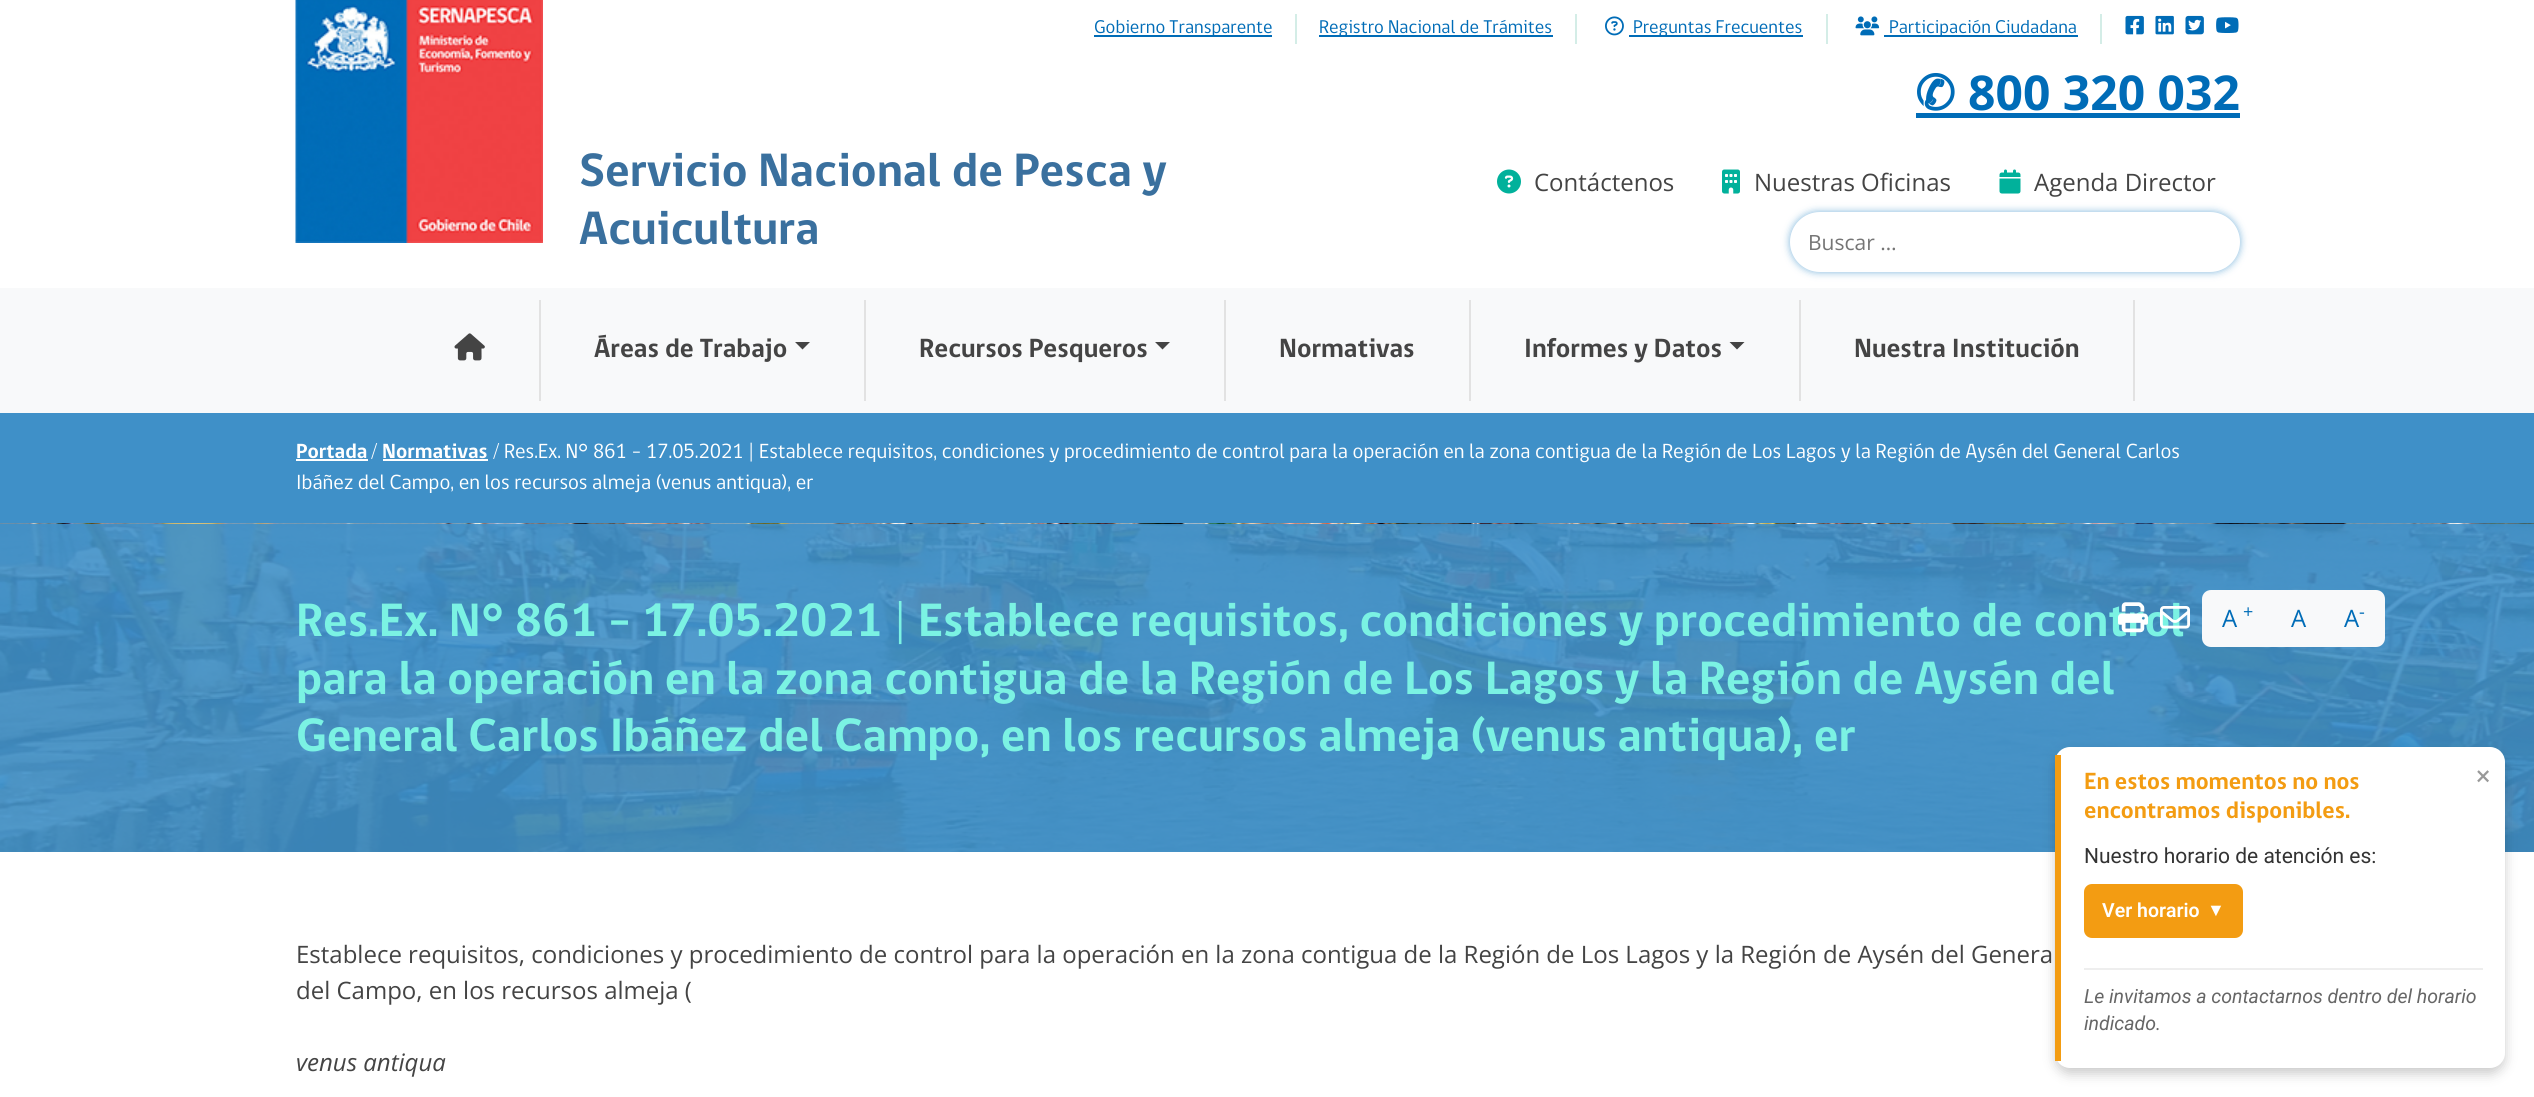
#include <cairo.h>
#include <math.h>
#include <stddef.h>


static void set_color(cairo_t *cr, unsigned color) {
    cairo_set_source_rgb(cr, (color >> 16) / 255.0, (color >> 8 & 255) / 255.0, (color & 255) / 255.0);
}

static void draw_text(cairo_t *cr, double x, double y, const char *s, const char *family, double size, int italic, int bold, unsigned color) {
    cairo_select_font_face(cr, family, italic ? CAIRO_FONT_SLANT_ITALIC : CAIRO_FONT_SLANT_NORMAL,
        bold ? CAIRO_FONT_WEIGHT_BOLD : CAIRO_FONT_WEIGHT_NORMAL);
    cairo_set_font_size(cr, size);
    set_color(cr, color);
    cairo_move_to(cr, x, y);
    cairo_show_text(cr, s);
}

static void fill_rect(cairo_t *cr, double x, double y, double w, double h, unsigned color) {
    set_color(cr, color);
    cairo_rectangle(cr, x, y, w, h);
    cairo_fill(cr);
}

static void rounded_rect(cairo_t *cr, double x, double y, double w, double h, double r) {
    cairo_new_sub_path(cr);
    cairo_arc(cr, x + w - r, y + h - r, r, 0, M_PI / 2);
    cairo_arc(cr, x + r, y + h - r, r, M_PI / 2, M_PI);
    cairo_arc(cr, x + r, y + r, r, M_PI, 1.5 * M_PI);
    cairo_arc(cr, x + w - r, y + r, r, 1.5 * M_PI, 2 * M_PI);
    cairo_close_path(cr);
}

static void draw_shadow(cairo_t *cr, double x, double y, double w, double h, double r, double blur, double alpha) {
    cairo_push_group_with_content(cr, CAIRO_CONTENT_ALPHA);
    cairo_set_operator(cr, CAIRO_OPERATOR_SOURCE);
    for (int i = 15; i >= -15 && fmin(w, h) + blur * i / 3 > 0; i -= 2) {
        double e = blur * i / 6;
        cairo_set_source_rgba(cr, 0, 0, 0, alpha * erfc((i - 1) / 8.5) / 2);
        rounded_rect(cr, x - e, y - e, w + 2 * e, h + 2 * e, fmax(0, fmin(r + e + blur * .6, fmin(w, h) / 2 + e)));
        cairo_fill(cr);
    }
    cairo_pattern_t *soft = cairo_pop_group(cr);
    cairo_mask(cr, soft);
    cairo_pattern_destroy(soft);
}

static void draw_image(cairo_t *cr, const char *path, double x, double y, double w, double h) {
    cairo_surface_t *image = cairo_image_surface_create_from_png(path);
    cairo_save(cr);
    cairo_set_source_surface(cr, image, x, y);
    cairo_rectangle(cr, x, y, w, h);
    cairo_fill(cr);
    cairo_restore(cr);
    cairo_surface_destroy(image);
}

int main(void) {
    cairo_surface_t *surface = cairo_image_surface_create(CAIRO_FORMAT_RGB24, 2534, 1097);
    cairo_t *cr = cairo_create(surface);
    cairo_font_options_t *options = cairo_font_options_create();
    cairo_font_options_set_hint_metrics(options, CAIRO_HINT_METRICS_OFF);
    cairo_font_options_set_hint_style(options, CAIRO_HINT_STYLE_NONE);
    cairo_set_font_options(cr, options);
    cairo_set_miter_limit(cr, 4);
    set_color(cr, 0xFFFFFF);
    cairo_paint(cr);
    fill_rect(cr, 1094, 35, 178, 2, 0x006CB7);
    draw_text(cr, 1094, 33, "Gobierno Transparente", "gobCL", 18.9, 0, 0, 0x006CB7);
    fill_rect(cr, 1295, 14, 2, 30, 0xD4EDE7);
    fill_rect(cr, 1319, 35, 234, 2, 0x006CB7);
    draw_text(cr, 1319, 33, "Registro Nacional de Trámites", "gobCL", 18.9, 0, 0, 0x006CB7);
    fill_rect(cr, 1575, 14, 2, 30, 0xD4EDE7);
    fill_rect(cr, 1826, 14, 2, 30, 0xD4EDE7);
    draw_image(cr, "assets/img1.png", 1605, 16, 19, 20);
    fill_rect(cr, 1629, 35, 174, 2, 0x006CB7);
    draw_text(cr, 1633, 33, "Preguntas Frecuentes", "gobCL", 18.9, 0, 0, 0x006CB7);
    fill_rect(cr, 2100, 14, 2, 30, 0xD4EDE7);
    draw_image(cr, "assets/img2.png", 1855, 16, 25, 20);
    fill_rect(cr, 1884, 35, 194, 2, 0x006CB7);
    draw_text(cr, 1889, 33, "Participación Ciudadana", "gobCL", 18.9, 0, 0, 0x006CB7);
    draw_image(cr, "assets/img3.png", 2125, 15, 19, 20);
    draw_image(cr, "assets/img4.png", 2155, 15, 19, 20);
    draw_image(cr, "assets/img5.png", 2185, 15, 19, 20);
    draw_image(cr, "assets/img6.png", 2216, 17, 23, 16);
    draw_image(cr, "assets/img7.png", 295, 0, 248, 243);
    draw_text(cr, 579, 186, "Servicio Nacional de Pesca y", "gobCL", 48, 0, 1, 0x3A709E);
    draw_text(cr, 579, 244, "Acuicultura", "gobCL", 48, 0, 1, 0x3A709E);
    draw_text(cr, 1915, 110, "✆", "DejaVu Sans", 48, 0, 1, 0x006CB7);
    draw_text(cr, 1968, 110, "800 320 032", "Open Sans", 48, 0, 1, 0x006CB7);
    fill_rect(cr, 1916, 113, 324, 5, 0x006CB7);
    draw_image(cr, "assets/img8.png", 1497, 169, 24, 25);
    draw_text(cr, 1534, 191, "Contáctenos", "Open Sans", 24, 0, 0, 0x444444);
    draw_image(cr, "assets/img9.png", 1722, 169, 18, 25);
    draw_text(cr, 1754, 191, "Nuestras Oficinas", "Open Sans", 24, 0, 0, 0x444444);
    draw_image(cr, "assets/img10.png", 1999, 169, 22, 25);
    draw_text(cr, 2034, 191, "Agenda Director", "Open Sans", 24, 0, 0, 0x444444);
    set_color(cr, 0x016EB9);
    draw_shadow(cr, 1790, 212, 450, 60, 30, 4, 0.5);
    set_color(cr, 0xFFFFFF);
    rounded_rect(cr, 1790, 212, 450, 60, 30);
    cairo_fill(cr);
    draw_text(cr, 1808, 250, "Buscar …", "Open Sans", 21, 0, 0, 0x757575);
    fill_rect(cr, 0, 288, 2534, 125, 0xF8F9FA);
    fill_rect(cr, 539, 300, 2, 101, 0xE2E2E2);
    draw_image(cr, "assets/img11.png", 454, 333, 31, 28);
    fill_rect(cr, 864, 300, 2, 101, 0xE2E2E2);
    draw_text(cr, 594, 357, "Áreas de Trabajo", "gobCL", 27, 0, 1, 0x444444);
    cairo_new_path(cr);
    cairo_move_to(cr, 795, 342);
    cairo_line_to(cr, 810, 342);
    cairo_line_to(cr, 802.5, 349.5);
    cairo_close_path(cr);
    cairo_fill(cr);
    fill_rect(cr, 1224, 300, 2, 101, 0xE2E2E2);
    draw_text(cr, 919, 357, "Recursos Pesqueros", "gobCL", 27, 0, 1, 0x444444);
    cairo_new_path(cr);
    cairo_move_to(cr, 1155, 342);
    cairo_line_to(cr, 1170, 342);
    cairo_line_to(cr, 1162.5, 349.5);
    cairo_close_path(cr);
    cairo_fill(cr);
    fill_rect(cr, 1469, 300, 2, 101, 0xE2E2E2);
    draw_text(cr, 1279, 357, "Normativas", "gobCL", 27, 0, 1, 0x444444);
    fill_rect(cr, 1799, 300, 2, 101, 0xE2E2E2);
    draw_text(cr, 1524, 357, "Informes y Datos", "gobCL", 27, 0, 1, 0x444444);
    cairo_new_path(cr);
    cairo_move_to(cr, 1729.5, 342);
    cairo_line_to(cr, 1744.5, 342);
    cairo_line_to(cr, 1737, 349.5);
    cairo_close_path(cr);
    cairo_fill(cr);
    fill_rect(cr, 2133, 300, 2, 101, 0xE2E2E2);
    draw_text(cr, 1854, 357, "Nuestra Institución", "gobCL", 27, 0, 1, 0x444444);
    fill_rect(cr, 0, 413, 2534, 110, 0x3F90C8);
    draw_text(cr, 296, 458, "Portada", "gobCL", 21, 0, 1, 0xFFFFFF);
    fill_rect(cr, 296, 459, 72, 2, 0xFFFFFF);
    draw_text(cr, 371, 458, "/", "gobCL", 21, 0, 0, 0xFFFFFF);
    draw_text(cr, 382, 458, "Normativas", "gobCL", 21, 0, 1, 0xFFFFFF);
    fill_rect(cr, 383, 459, 105, 2, 0xFFFFFF);
    draw_text(cr, 493, 458, "/ Res.Ex. N° 861 – 17.05.2021 | Establece requisitos, condiciones y procedimiento de control para la operación en la zona contigua de la Región de Los Lagos y la Región de Aysén del General Carlos", "gobCL", 21, 0, 0, 0xFFFFFF);
    draw_text(cr, 296, 489, "Ibáñez del Campo, en los recursos almeja (venus antiqua), er", "gobCL", 21, 0, 0, 0xFFFFFF);
    draw_image(cr, "assets/img12.png", 0, 523, 2534, 329);
    draw_text(cr, 296, 636, "Res.Ex. N° 861 – 17.05.2021 | Establece requisitos, condiciones y procedimiento de control", "gobCL", 48, 0, 1, 0x7BF2E3);
    draw_text(cr, 296, 694, "para la operación en la zona contigua de la Región de Los Lagos y la Región de Aysén del", "gobCL", 48, 0, 1, 0x7BF2E3);
    draw_text(cr, 296, 751, "General Carlos Ibáñez del Campo, en los recursos almeja (venus antiqua), er", "gobCL", 48, 0, 1, 0x7BF2E3);
    draw_image(cr, "assets/img13.png", 2118, 602, 30, 31);
    draw_image(cr, "assets/img14.png", 2160, 606, 30, 23);
    set_color(cr, 0xF8F9FA);
    cairo_new_path(cr);
    cairo_move_to(cr, 2211, 591);
    cairo_line_to(cr, 2272, 591);
    cairo_line_to(cr, 2272, 646);
    cairo_line_to(cr, 2211, 646);
    cairo_curve_to(cr, 2206.5, 646, 2203, 642.5, 2203, 638);
    cairo_line_to(cr, 2203, 599);
    cairo_curve_to(cr, 2203, 594.5, 2206.5, 591, 2211, 591);
    cairo_close_path(cr);
    cairo_fill_preserve(cr);
    cairo_stroke(cr);
    draw_text(cr, 2222, 627, "A", "Open Sans", 24, 0, 0, 0x006CB7);
    draw_text(cr, 2243, 618, "+", "Open Sans", 18, 0, 0, 0x006CB7);
    fill_rect(cr, 2273, 590, 52, 57, 0xF8F9FA);
    draw_text(cr, 2291, 627, "A", "Open Sans", 24, 0, 0, 0x006CB7);
    set_color(cr, 0xF8F9FA);
    cairo_new_path(cr);
    cairo_move_to(cr, 2326, 591);
    cairo_line_to(cr, 2376, 591);
    cairo_curve_to(cr, 2380.5, 591, 2384, 594.5, 2384, 599);
    cairo_line_to(cr, 2384, 638);
    cairo_curve_to(cr, 2384, 642.5, 2380.5, 646, 2376, 646);
    cairo_line_to(cr, 2326, 646);
    cairo_close_path(cr);
    cairo_fill_preserve(cr);
    cairo_stroke(cr);
    draw_text(cr, 2344, 627, "A", "Open Sans", 24, 0, 0, 0x006CB7);
    draw_text(cr, 2359, 618, "-", "Open Sans", 18, 0, 0, 0x006CB7);
    draw_text(cr, 296, 963, "Establece requisitos, condiciones y procedimiento de control para la operación en la zona contigua de la Región de Los Lagos y la Región de Aysén del Genera", "Open Sans", 24, 0, 0, 0x444444);
    draw_text(cr, 296, 999, "del Campo, en los recursos almeja (", "Open Sans", 24, 0, 0, 0x444444);
    draw_text(cr, 296, 1071, "venus antiqua", "Open Sans", 24, 1, 0, 0x444444);
    set_color(cr, 0x000000);
    draw_shadow(cr, 2055, 753, 450, 321, 15, 6, 0.2);
    set_color(cr, 0xFFFFFF);
    rounded_rect(cr, 2055, 747, 450, 321, 15);
    cairo_fill(cr);
    fill_rect(cr, 2055, 755, 6, 306, 0xF39C12);
    draw_text(cr, 2084, 789, "En estos momentos no nos", "gobCL", 24, 0, 1, 0xF39C12);
    draw_text(cr, 2084, 818, "encontramos disponibles.", "gobCL", 24, 0, 1, 0xF39C12);
    draw_text(cr, 2476, 785, "×", "Roboto", 27, 0, 0, 0x999999);
    draw_text(cr, 2084, 863, "Nuestro horario de atención es:", "Roboto", 21, 0, 0, 0x333333);
    set_color(cr, 0xF39C12);
    rounded_rect(cr, 2084, 884, 159, 54, 8);
    cairo_fill(cr);
    draw_text(cr, 2102, 917, "Ver horario", "Roboto SemiBold", 19.5, 0, 0, 0xFFFFFF);
    draw_text(cr, 2207, 916, "▼", "Liberation Sans", 18, 0, 1, 0xFFFFFF);
    fill_rect(cr, 2084, 968, 399, 2, 0xEEEEEE);
    draw_text(cr, 2084, 1003, "Le invitamos a contactarnos dentro del horario", "Roboto", 19.5, 1, 0, 0x666666);
    draw_text(cr, 2084, 1030, "indicado.", "Roboto", 19.5, 1, 0, 0x666666);
    cairo_surface_write_to_png(surface, "output.png");
    cairo_font_options_destroy(options);
    cairo_destroy(cr);
    cairo_surface_destroy(surface);
    return 0;
}
